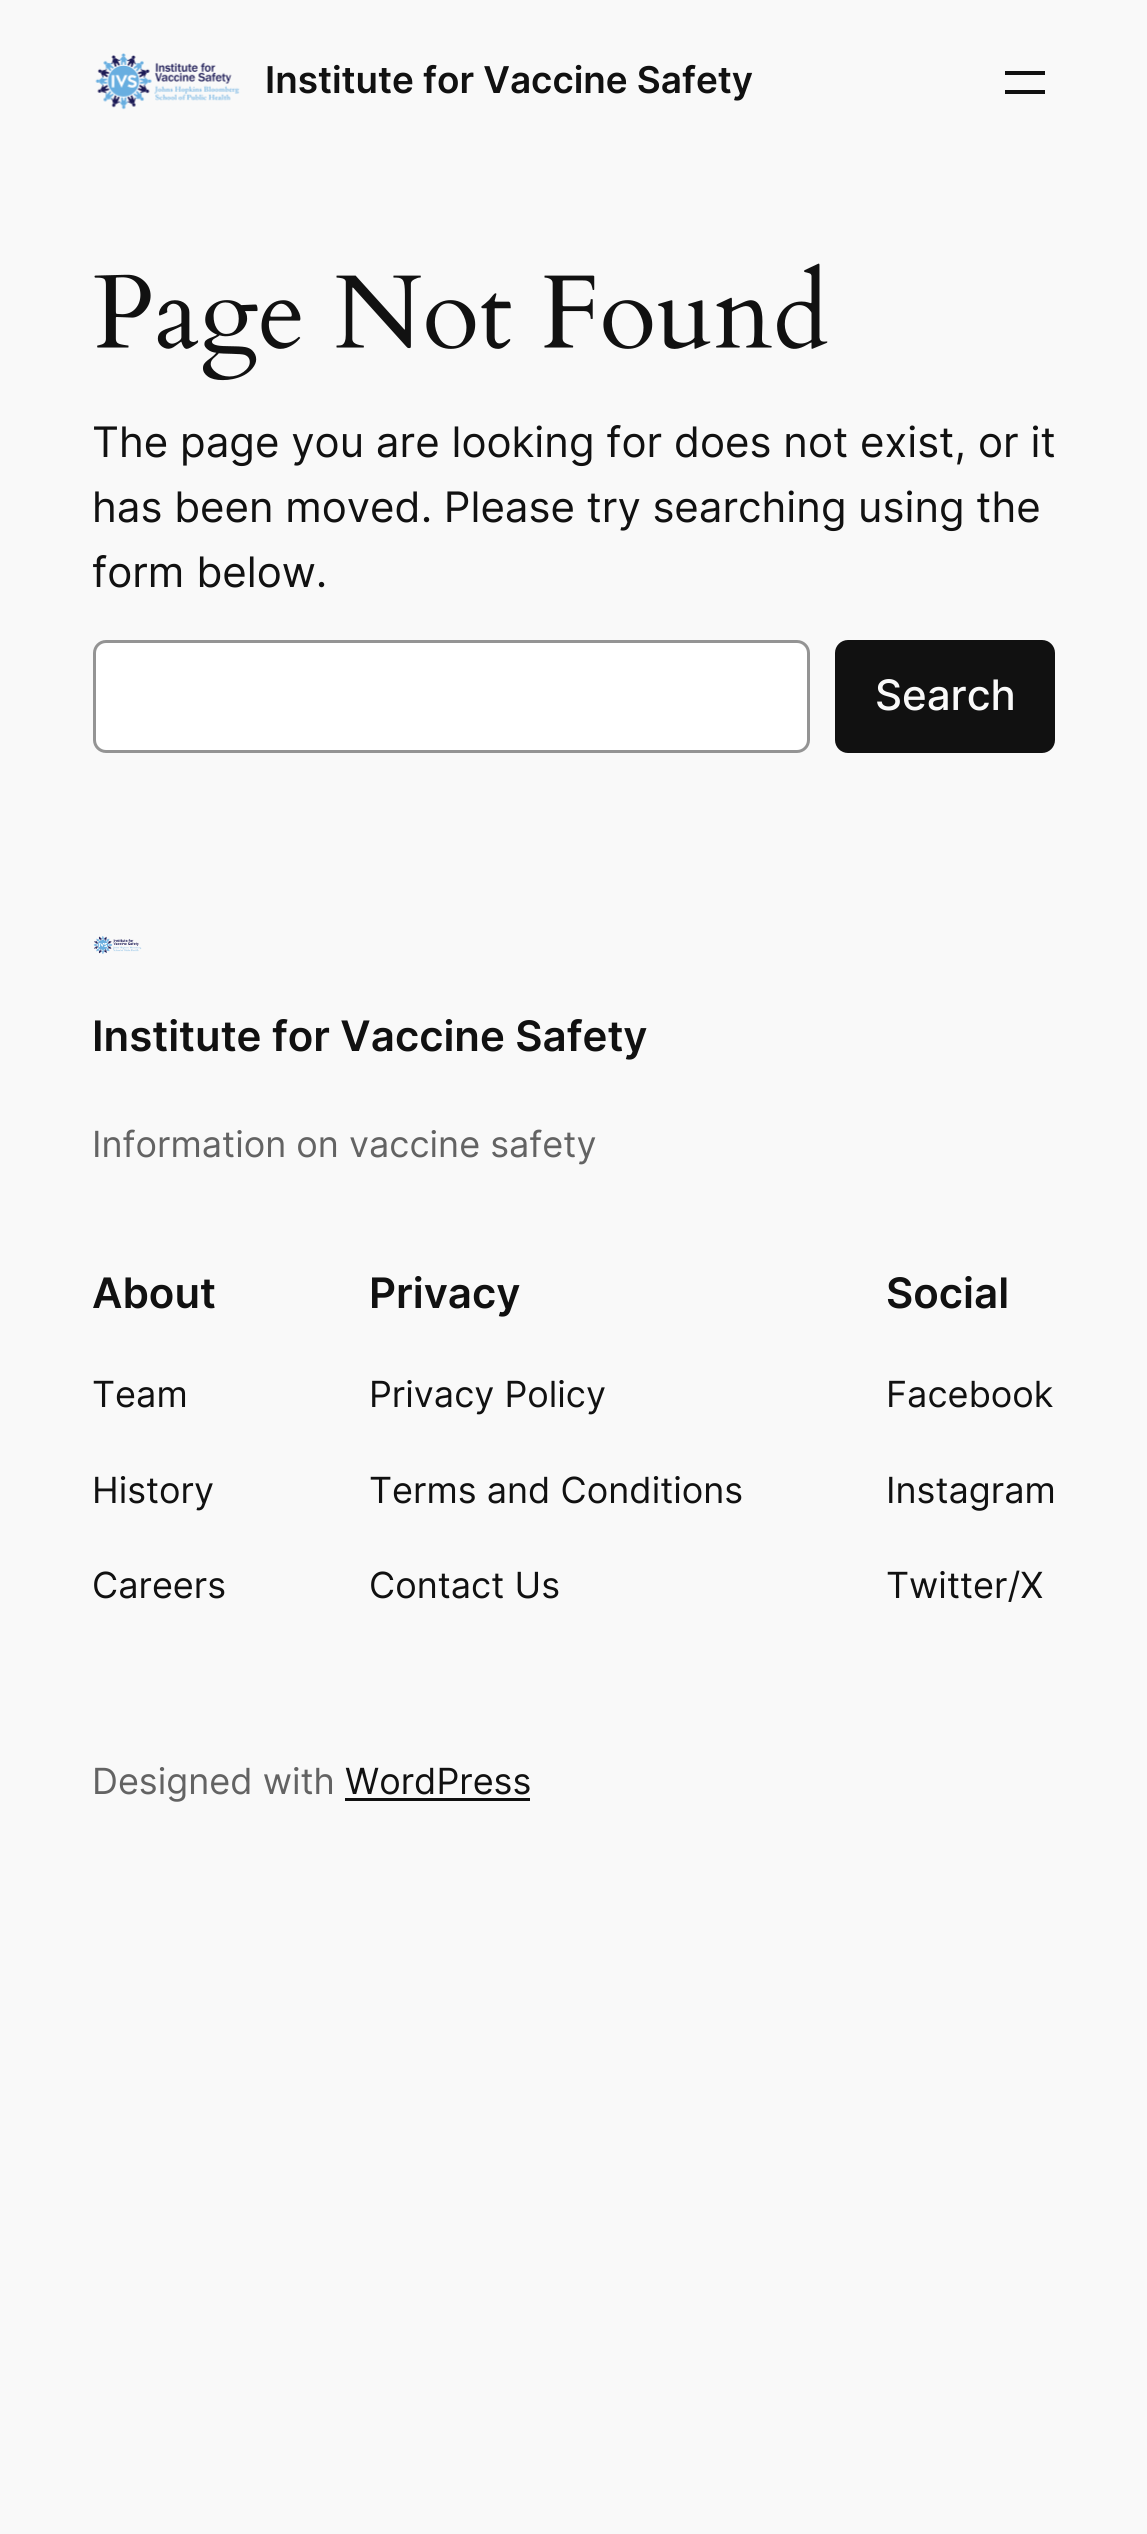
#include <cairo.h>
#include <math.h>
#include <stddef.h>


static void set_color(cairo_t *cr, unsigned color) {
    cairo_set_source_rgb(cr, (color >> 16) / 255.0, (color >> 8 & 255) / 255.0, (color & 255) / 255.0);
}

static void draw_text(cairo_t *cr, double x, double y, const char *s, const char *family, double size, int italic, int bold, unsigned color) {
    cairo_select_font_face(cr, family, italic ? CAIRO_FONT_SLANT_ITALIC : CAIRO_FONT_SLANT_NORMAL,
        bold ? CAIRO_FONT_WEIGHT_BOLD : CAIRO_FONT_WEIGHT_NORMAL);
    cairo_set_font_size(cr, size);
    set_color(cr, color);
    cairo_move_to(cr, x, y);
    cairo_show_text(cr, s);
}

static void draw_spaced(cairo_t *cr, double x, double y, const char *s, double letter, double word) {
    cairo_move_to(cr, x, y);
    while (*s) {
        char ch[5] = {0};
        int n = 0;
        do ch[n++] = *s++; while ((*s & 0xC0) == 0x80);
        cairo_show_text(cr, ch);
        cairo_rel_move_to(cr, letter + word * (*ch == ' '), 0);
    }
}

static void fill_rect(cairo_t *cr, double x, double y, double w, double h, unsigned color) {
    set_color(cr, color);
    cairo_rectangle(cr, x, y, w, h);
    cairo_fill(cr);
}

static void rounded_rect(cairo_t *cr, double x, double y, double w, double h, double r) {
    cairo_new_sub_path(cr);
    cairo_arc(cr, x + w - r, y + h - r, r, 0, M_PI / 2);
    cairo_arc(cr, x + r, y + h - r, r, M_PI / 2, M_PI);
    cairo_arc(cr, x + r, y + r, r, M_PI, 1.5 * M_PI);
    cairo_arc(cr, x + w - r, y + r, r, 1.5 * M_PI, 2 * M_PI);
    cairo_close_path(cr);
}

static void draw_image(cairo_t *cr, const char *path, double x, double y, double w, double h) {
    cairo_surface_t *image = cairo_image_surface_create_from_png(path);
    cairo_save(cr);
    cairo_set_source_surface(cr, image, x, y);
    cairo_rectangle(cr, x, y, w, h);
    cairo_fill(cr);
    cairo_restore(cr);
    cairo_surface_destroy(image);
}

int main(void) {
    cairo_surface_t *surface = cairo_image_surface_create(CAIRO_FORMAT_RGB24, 1147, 2534);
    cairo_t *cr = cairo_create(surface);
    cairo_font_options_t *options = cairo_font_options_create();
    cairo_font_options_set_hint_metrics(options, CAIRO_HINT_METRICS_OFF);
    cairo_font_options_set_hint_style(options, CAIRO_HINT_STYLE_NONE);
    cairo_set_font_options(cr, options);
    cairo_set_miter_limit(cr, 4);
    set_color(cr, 0xF9F9F9);
    cairo_paint(cr);
    draw_image(cr, "assets/img1.png", 95, 53, 145, 57);
    draw_text(cr, 265, 93, "Institute for Vaccine Safety", "Inter SemiBold", 36.9, 0, 0, 0x111111);
    fill_rect(cr, 1005, 71, 40, 4, 0x111111);
    fill_rect(cr, 1005, 90, 40, 4, 0x111111);
    draw_image(cr, "assets/img2.png", 94, 263, 734, 118);
    draw_text(cr, 92, 457, "The page you are looking for does not exist, or it", "Inter", 42, 0, 0, 0x111111);
    draw_spaced(cr, 92, 522, "has been moved. Please try searching using the", 0, -0.25);
    draw_text(cr, 92, 587, "form below.", "Inter", 42, 0, 0, 0x111111);
    set_color(cr, 0xFFFFFF);
    rounded_rect(cr, 94.5, 641.5, 714, 110, 11.5);
    cairo_fill_preserve(cr);
    set_color(cr, 0x949494);
    cairo_set_line_width(cr, 3);
    cairo_stroke(cr);
    set_color(cr, 0x111111);
    rounded_rect(cr, 835, 640, 220, 113, 13);
    cairo_fill(cr);
    draw_text(cr, 875, 710, "Search", "Inter Medium", 42, 0, 0, 0xF9F9F9);
    draw_image(cr, "assets/img3.png", 93, 936, 49, 18);
    draw_text(cr, 92, 1051, "Institute for Vaccine Safety", "Inter SemiBold", 42, 0, 0, 0x111111);
    draw_text(cr, 92, 1157, "Information on vaccine safety", "Inter", 36, 0, 0, 0x636363);
    draw_text(cr, 92, 1308, "About", "Inter SemiBold", 42, 0, 0, 0x111111);
    draw_text(cr, 92, 1407, "Team", "Inter", 36, 0, 0, 0x111111);
    draw_text(cr, 92, 1503, "History", "Inter", 36, 0, 0, 0x111111);
    draw_text(cr, 92, 1598, "Careers", "Inter", 36, 0, 0, 0x111111);
    draw_text(cr, 369, 1308, "Privacy", "Inter SemiBold", 42, 0, 0, 0x111111);
    draw_text(cr, 369, 1407, "Privacy Policy", "Inter", 36, 0, 0, 0x111111);
    draw_text(cr, 369, 1503, "Terms and Conditions", "Inter", 36, 0, 0, 0x111111);
    draw_text(cr, 369, 1598, "Contact Us", "Inter", 36, 0, 0, 0x111111);
    draw_text(cr, 886, 1308, "Social", "Inter SemiBold", 42, 0, 0, 0x111111);
    draw_text(cr, 886, 1407, "Facebook", "Inter", 36, 0, 0, 0x111111);
    draw_text(cr, 886, 1503, "Instagram", "Inter", 36, 0, 0, 0x111111);
    draw_text(cr, 886, 1598, "Twitter/X", "Inter", 36, 0, 0, 0x111111);
    draw_text(cr, 92, 1794, "Designed with", "Inter", 36, 0, 0, 0x636363);
    draw_text(cr, 345, 1794, "WordPress", "Inter", 36, 0, 0, 0x111111);
    fill_rect(cr, 345, 1798, 185, 3, 0x111111);
    cairo_surface_write_to_png(surface, "output.png");
    cairo_font_options_destroy(options);
    cairo_destroy(cr);
    cairo_surface_destroy(surface);
    return 0;
}
